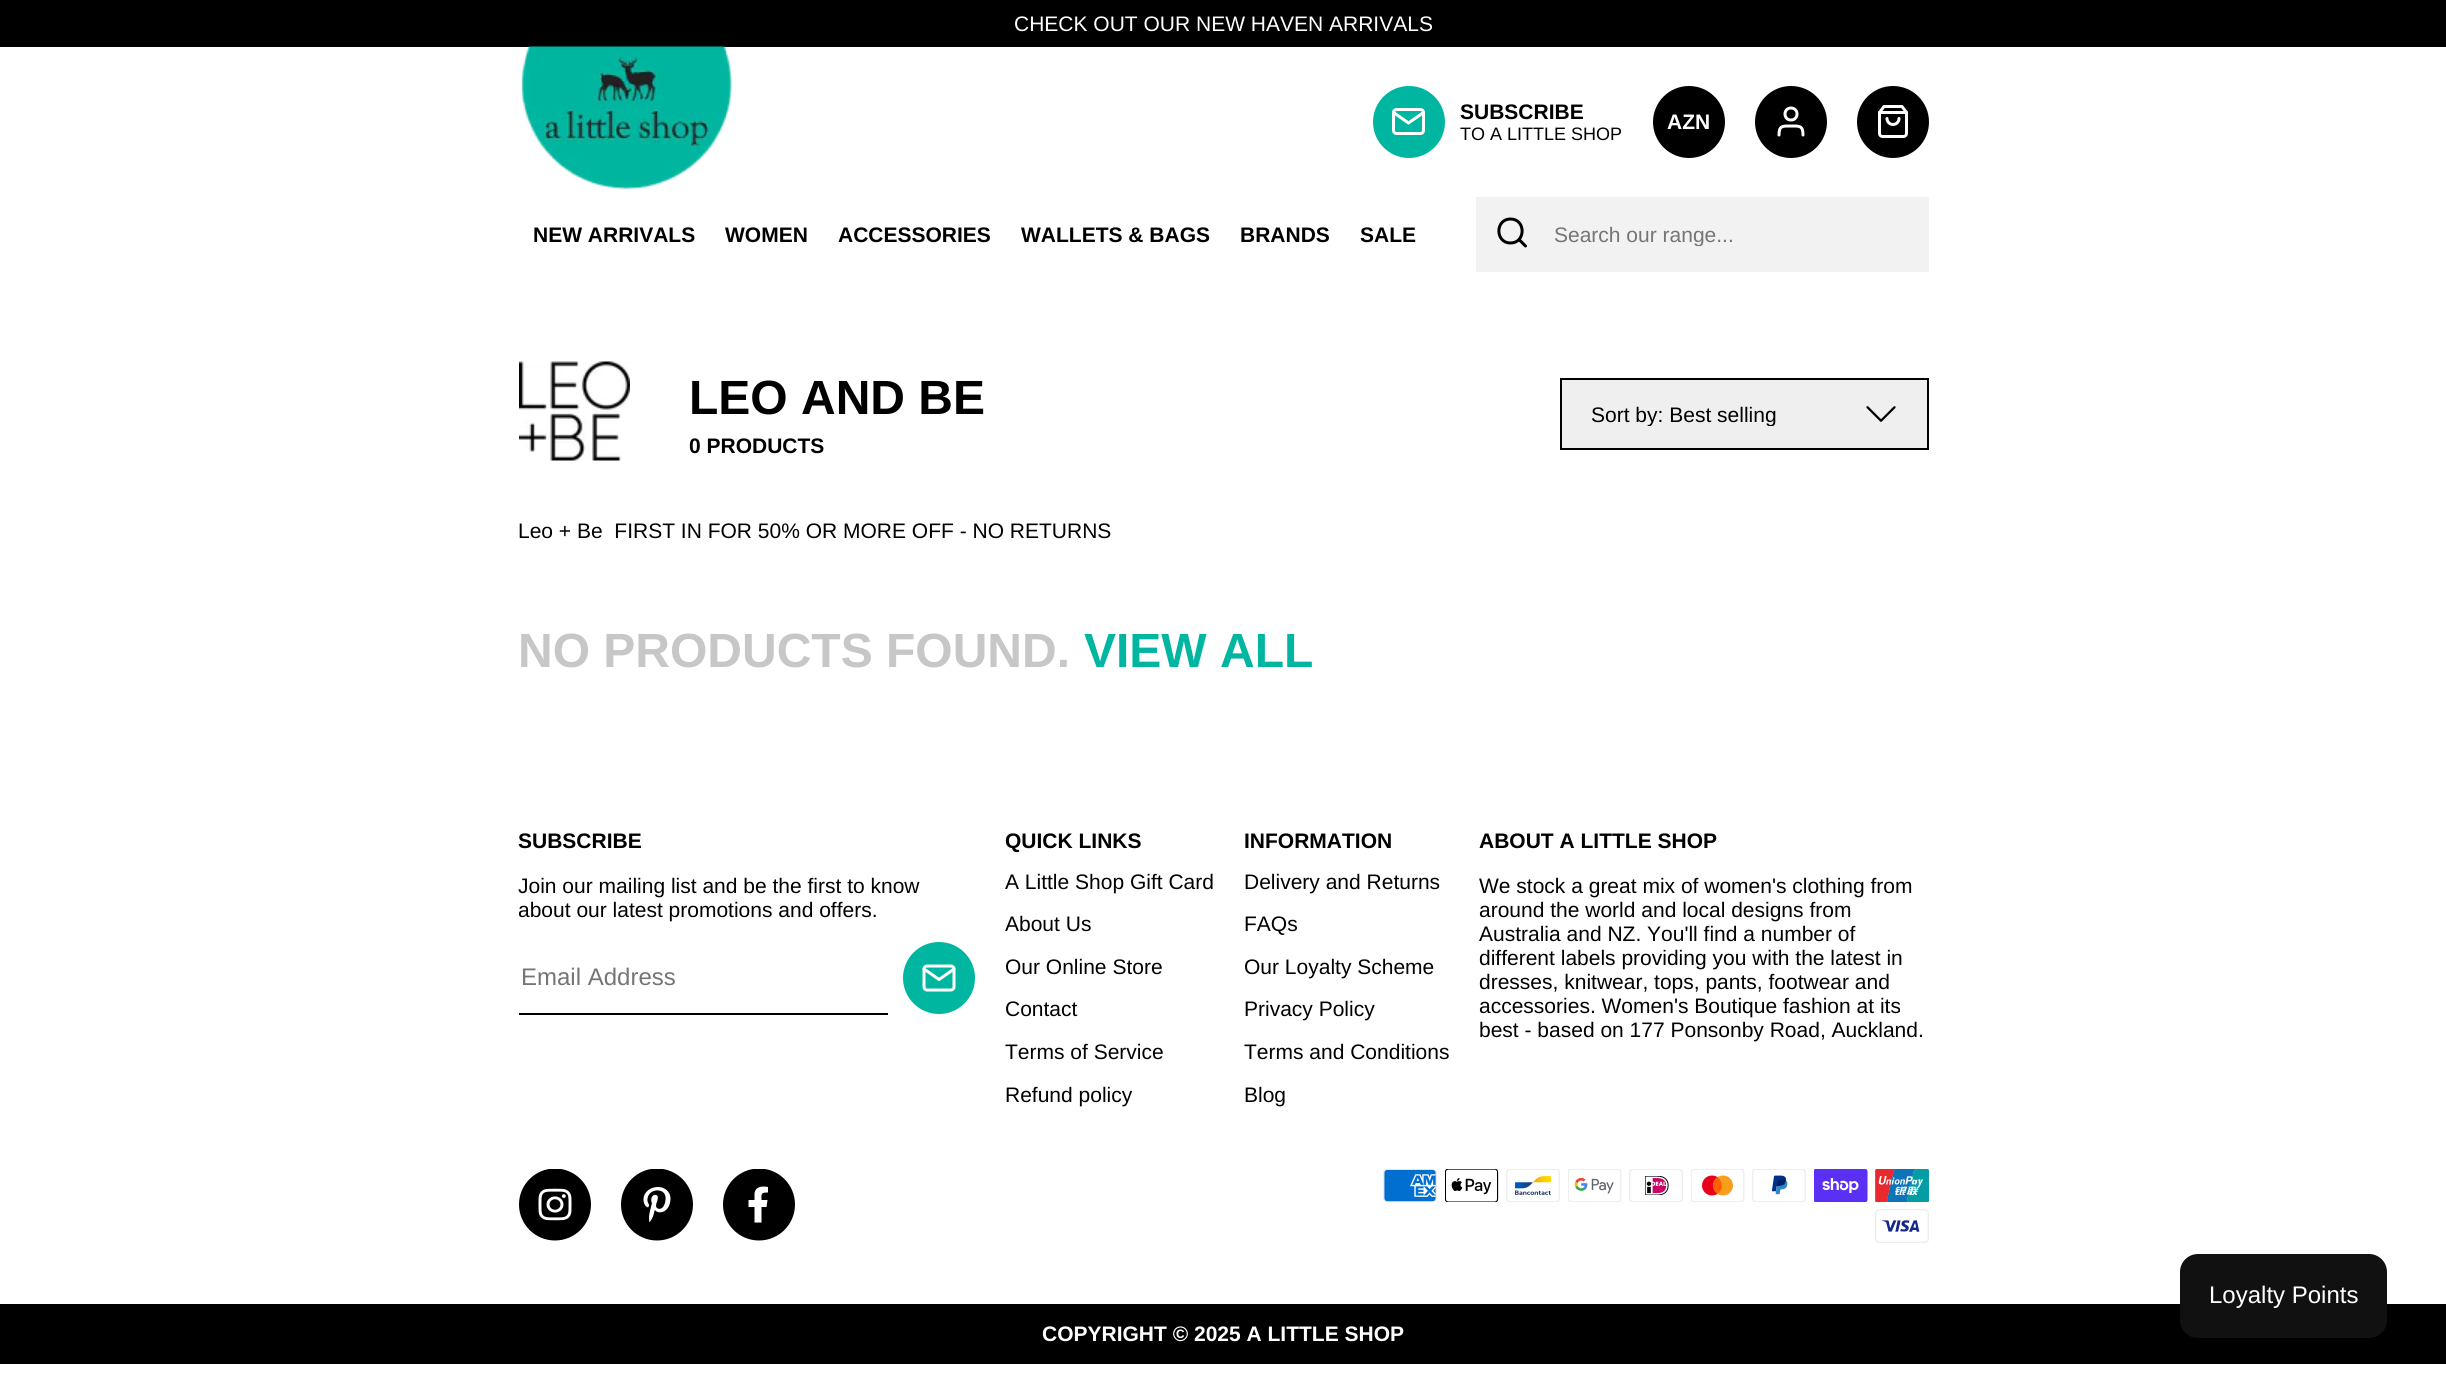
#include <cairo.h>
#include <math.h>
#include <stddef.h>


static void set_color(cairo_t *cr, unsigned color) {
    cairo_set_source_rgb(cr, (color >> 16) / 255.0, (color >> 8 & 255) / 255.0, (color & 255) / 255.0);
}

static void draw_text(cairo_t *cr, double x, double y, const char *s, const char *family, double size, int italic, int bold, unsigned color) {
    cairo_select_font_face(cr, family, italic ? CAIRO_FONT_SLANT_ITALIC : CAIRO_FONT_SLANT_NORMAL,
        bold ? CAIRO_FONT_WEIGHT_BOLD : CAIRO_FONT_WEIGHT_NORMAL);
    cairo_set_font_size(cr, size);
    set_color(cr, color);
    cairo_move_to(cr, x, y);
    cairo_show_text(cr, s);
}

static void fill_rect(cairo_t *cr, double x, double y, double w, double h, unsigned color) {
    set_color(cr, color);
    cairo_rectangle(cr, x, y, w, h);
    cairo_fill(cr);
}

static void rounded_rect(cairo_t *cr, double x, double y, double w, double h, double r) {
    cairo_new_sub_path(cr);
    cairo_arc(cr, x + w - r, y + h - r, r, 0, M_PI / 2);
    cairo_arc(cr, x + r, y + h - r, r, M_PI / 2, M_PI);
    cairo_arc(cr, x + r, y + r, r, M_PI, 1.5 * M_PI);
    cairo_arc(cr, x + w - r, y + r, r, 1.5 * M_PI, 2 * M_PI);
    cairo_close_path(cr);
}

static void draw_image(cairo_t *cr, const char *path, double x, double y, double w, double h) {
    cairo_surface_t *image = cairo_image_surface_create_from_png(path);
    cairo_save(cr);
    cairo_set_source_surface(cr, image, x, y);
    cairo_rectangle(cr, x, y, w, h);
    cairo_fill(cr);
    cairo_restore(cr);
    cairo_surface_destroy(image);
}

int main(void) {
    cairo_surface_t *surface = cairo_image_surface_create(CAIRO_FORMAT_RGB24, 2446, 1374);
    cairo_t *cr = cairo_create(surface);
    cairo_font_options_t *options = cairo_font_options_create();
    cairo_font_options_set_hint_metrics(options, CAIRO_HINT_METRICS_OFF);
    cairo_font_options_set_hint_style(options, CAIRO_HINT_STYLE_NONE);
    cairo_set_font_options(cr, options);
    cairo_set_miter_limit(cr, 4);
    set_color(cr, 0xFFFFFF);
    cairo_paint(cr);
    fill_rect(cr, 0, 0, 2446, 47, 0x000000);
    draw_text(cr, 1014, 31, "CHECK OUT OUR NEW HAVEN ARRIVALS", "Liberation Sans", 21, 0, 0, 0xFFFFFF);
    draw_image(cr, "assets/img1.png", 521, 46, 212, 144);
    set_color(cr, 0x00B6A0);
    cairo_arc(cr, 1409, 122, 36, 0, 2 * M_PI);
    cairo_fill(cr);
    draw_image(cr, "assets/img2.png", 1392, 108, 33, 27);
    draw_text(cr, 1460, 119, "SUBSCRIBE", "Liberation Sans", 21, 0, 1, 0x000000);
    draw_text(cr, 1460, 140, "TO A LITTLE SHOP", "Liberation Sans", 18, 0, 0, 0x000000);
    cairo_new_path(cr);
    cairo_arc(cr, 1689, 122, 36, 0, 2 * M_PI);
    cairo_fill(cr);
    draw_text(cr, 1667, 129, "AZN", "Liberation Sans", 21, 0, 1, 0xFFFFFF);
    set_color(cr, 0x000000);
    cairo_new_path(cr);
    cairo_arc(cr, 1791, 122, 36, 0, 2 * M_PI);
    cairo_fill(cr);
    cairo_new_path(cr);
    cairo_move_to(cr, 1803, 135);
    cairo_curve_to(cr, 1803, 125.5, 1799.5, 126, 1791, 126);
    cairo_curve_to(cr, 1782.5, 126, 1779, 125.5, 1779, 135);
    cairo_move_to(cr, 1791, 120);
    cairo_curve_to(cr, 1799, 120, 1799, 108, 1791, 108);
    cairo_curve_to(cr, 1783, 108, 1783, 120, 1791, 120);
    cairo_close_path(cr);
    set_color(cr, 0xFFFFFF);
    cairo_set_line_width(cr, 3);
    cairo_set_line_cap(cr, CAIRO_LINE_CAP_ROUND);
    cairo_set_line_join(cr, CAIRO_LINE_JOIN_ROUND);
    cairo_stroke(cr);
    set_color(cr, 0x000000);
    cairo_arc(cr, 1893, 122, 36, 0, 2 * M_PI);
    cairo_fill(cr);
    draw_image(cr, "assets/img3.png", 1878, 105, 30, 33);
    draw_text(cr, 533, 242, "NEW ARRIVALS", "Liberation Sans", 21, 0, 1, 0x000000);
    draw_text(cr, 725, 242, "WOMEN", "Liberation Sans", 21, 0, 1, 0x000000);
    draw_text(cr, 838, 242, "ACCESSORIES", "Liberation Sans", 21, 0, 1, 0x000000);
    draw_text(cr, 1021, 242, "WALLETS & BAGS", "Liberation Sans", 21, 0, 1, 0x000000);
    draw_text(cr, 1240, 242, "BRANDS", "Liberation Sans", 21, 0, 1, 0x000000);
    draw_text(cr, 1360, 242, "SALE", "Liberation Sans", 21, 0, 1, 0x000000);
    fill_rect(cr, 1476, 197, 453, 75, 0xF2F2F2);
    cairo_new_path(cr);
    cairo_move_to(cr, 1510.5, 243);
    cairo_curve_to(cr, 1526, 243, 1526, 219, 1510.5, 219);
    cairo_curve_to(cr, 1495, 219, 1495, 243, 1510.5, 243);
    cairo_close_path(cr);
    cairo_move_to(cr, 1525.5, 246);
    cairo_line_to(cr, 1519, 239.5);
    set_color(cr, 0x000000);
    cairo_stroke(cr);
    cairo_save(cr);
    cairo_rectangle(cr, 1554, 222, 342, 24);
    cairo_clip(cr);
    draw_text(cr, 1554, 242, "Search our range...", "Liberation Sans", 21, 0, 0, 0x757575);
    cairo_restore(cr);
    draw_image(cr, "assets/img4.png", 519, 361, 111, 100);
    draw_text(cr, 689, 414, "LEO AND BE", "Liberation Sans", 48, 0, 1, 0x000000);
    draw_text(cr, 689, 453, "0 PRODUCTS", "Liberation Sans", 21, 0, 1, 0x000000);
    set_color(cr, 0xEFEFEF);
    cairo_rectangle(cr, 1561, 379, 367, 70);
    cairo_fill_preserve(cr);
    set_color(cr, 0x000000);
    cairo_set_line_width(cr, 2);
    cairo_set_line_cap(cr, CAIRO_LINE_CAP_BUTT);
    cairo_set_line_join(cr, CAIRO_LINE_JOIN_MITER);
    cairo_stroke(cr);
    cairo_save(cr);
    cairo_rectangle(cr, 1592, 402, 253, 24);
    cairo_clip(cr);
    draw_text(cr, 1591, 422, "Sort by: Best selling", "Liberation Sans", 21, 0, 0, 0x000000);
    cairo_restore(cr);
    draw_image(cr, "assets/img5.png", 1866, 406, 30, 16);
    draw_text(cr, 518, 538, "Leo + Be  FIRST IN FOR 50% OR MORE OFF - NO RETURNS", "Liberation Sans", 21, 0, 0, 0x000000);
    draw_text(cr, 518, 667, "NO PRODUCTS FOUND.", "Liberation Sans", 48, 0, 1, 0xC7C7C7);
    draw_text(cr, 1084, 667, "VIEW ALL", "Liberation Sans", 48, 0, 1, 0x00B6A0);
    draw_text(cr, 518, 848, "SUBSCRIBE", "Liberation Sans", 21, 0, 1, 0x000000);
    draw_text(cr, 518, 893, "Join our mailing list and be the first to know", "Liberation Sans", 21, 0, 0, 0x000000);
    draw_text(cr, 518, 917, "about our latest promotions and offers.", "Liberation Sans", 21, 0, 0, 0x000000);
    fill_rect(cr, 519, 1013, 369, 2, 0x000000);
    draw_text(cr, 521, 985, "Email Address", "Liberation Sans", 24, 0, 0, 0x757575);
    set_color(cr, 0x00B6A0);
    cairo_new_path(cr);
    cairo_arc(cr, 939, 978, 36, 0, 2 * M_PI);
    cairo_fill(cr);
    draw_image(cr, "assets/img6.png", 922, 964, 34, 28);
    draw_text(cr, 1005, 848, "QUICK LINKS", "Liberation Sans", 21, 0, 1, 0x000000);
    draw_text(cr, 1005, 889, "A Little Shop Gift Card", "Liberation Sans", 21, 0, 0, 0x000000);
    draw_text(cr, 1005, 931, "About Us", "Liberation Sans", 21, 0, 0, 0x000000);
    draw_text(cr, 1005, 974, "Our Online Store", "Liberation Sans", 21, 0, 0, 0x000000);
    draw_text(cr, 1005, 1016, "Contact", "Liberation Sans", 21, 0, 0, 0x000000);
    draw_text(cr, 1005, 1059, "Terms of Service", "Liberation Sans", 21, 0, 0, 0x000000);
    draw_text(cr, 1005, 1102, "Refund policy", "Liberation Sans", 21, 0, 0, 0x000000);
    draw_text(cr, 1244, 848, "INFORMATION", "Liberation Sans", 21, 0, 1, 0x000000);
    draw_text(cr, 1244, 889, "Delivery and Returns", "Liberation Sans", 21, 0, 0, 0x000000);
    draw_text(cr, 1244, 931, "FAQs", "Liberation Sans", 21, 0, 0, 0x000000);
    draw_text(cr, 1244, 974, "Our Loyalty Scheme", "Liberation Sans", 21, 0, 0, 0x000000);
    draw_text(cr, 1244, 1016, "Privacy Policy", "Liberation Sans", 21, 0, 0, 0x000000);
    draw_text(cr, 1244, 1059, "Terms and Conditions", "Liberation Sans", 21, 0, 0, 0x000000);
    draw_text(cr, 1244, 1102, "Blog", "Liberation Sans", 21, 0, 0, 0x000000);
    draw_text(cr, 1479, 848, "ABOUT A LITTLE SHOP", "Liberation Sans", 21, 0, 1, 0x000000);
    draw_text(cr, 1479, 893, "We stock a great mix of women's clothing from", "Liberation Sans", 21, 0, 0, 0x000000);
    draw_text(cr, 1479, 917, "around the world and local designs from", "Liberation Sans", 21, 0, 0, 0x000000);
    draw_text(cr, 1479, 941, "Australia and NZ. You'll find a number of", "Liberation Sans", 21, 0, 0, 0x000000);
    draw_text(cr, 1479, 965, "different labels providing you with the latest in", "Liberation Sans", 21, 0, 0, 0x000000);
    draw_text(cr, 1479, 989, "dresses, knitwear, tops, pants, footwear and", "Liberation Sans", 21, 0, 0, 0x000000);
    draw_text(cr, 1479, 1013, "accessories. Women's Boutique fashion at its", "Liberation Sans", 21, 0, 0, 0x000000);
    draw_text(cr, 1479, 1037, "best - based on 177 Ponsonby Road, Auckland.", "Liberation Sans", 21, 0, 0, 0x000000);
    draw_image(cr, "assets/img7.png", 519, 1169, 72, 72);
    draw_image(cr, "assets/img8.png", 621, 1169, 72, 72);
    cairo_save(cr);
    cairo_rectangle(cr, 723, 1169, 72, 72);
    cairo_clip(cr);
    cairo_arc(cr, 759, 1204.5, 36, 0, 2 * M_PI);
    cairo_fill(cr);
    cairo_restore(cr);
    set_color(cr, 0xFFFFFF);
    cairo_new_path(cr);
    cairo_move_to(cr, 766.5, 1207);
    cairo_line_to(cr, 767.5, 1200);
    cairo_line_to(cr, 761.5, 1200);
    cairo_curve_to(cr, 761.5, 1194, 760.5, 1192.5, 768, 1192.5);
    cairo_line_to(cr, 768, 1187);
    cairo_curve_to(cr, 762.5, 1186, 755.5, 1186, 754.5, 1193.5);
    cairo_line_to(cr, 754.5, 1200);
    cairo_line_to(cr, 748.5, 1200);
    cairo_line_to(cr, 748.5, 1207);
    cairo_line_to(cr, 754.5, 1207);
    cairo_line_to(cr, 754.5, 1222.5);
    cairo_line_to(cr, 761.5, 1222.5);
    cairo_line_to(cr, 761.5, 1207);
    cairo_close_path(cr);
    cairo_fill(cr);
    draw_image(cr, "assets/img9.png", 1383, 1169, 54, 33);
    draw_image(cr, "assets/img10.png", 1445, 1169, 54, 33);
    draw_image(cr, "assets/img11.png", 1506, 1169, 54, 33);
    draw_image(cr, "assets/img12.png", 1568, 1169, 54, 33);
    draw_image(cr, "assets/img13.png", 1629, 1169, 54, 33);
    draw_image(cr, "assets/img14.png", 1691, 1169, 54, 33);
    draw_image(cr, "assets/img15.png", 1752, 1169, 54, 33);
    draw_image(cr, "assets/img16.png", 1814, 1169, 54, 33);
    draw_image(cr, "assets/img17.png", 1875, 1169, 54, 33);
    draw_image(cr, "assets/img18.png", 1875, 1209, 54, 34);
    fill_rect(cr, 0, 1304, 2446, 60, 0x000000);
    draw_text(cr, 1042, 1341, "COPYRIGHT © 2025 A LITTLE SHOP", "Liberation Sans", 21, 0, 1, 0xFFFFFF);
    set_color(cr, 0x111111);
    rounded_rect(cr, 2180, 1254, 207, 84, 18);
    cairo_fill(cr);
    draw_text(cr, 2209, 1303, "Loyalty Points", "Liberation Sans", 24, 0, 0, 0xFFFFFF);
    cairo_surface_write_to_png(surface, "output.png");
    cairo_font_options_destroy(options);
    cairo_destroy(cr);
    cairo_surface_destroy(surface);
    return 0;
}
